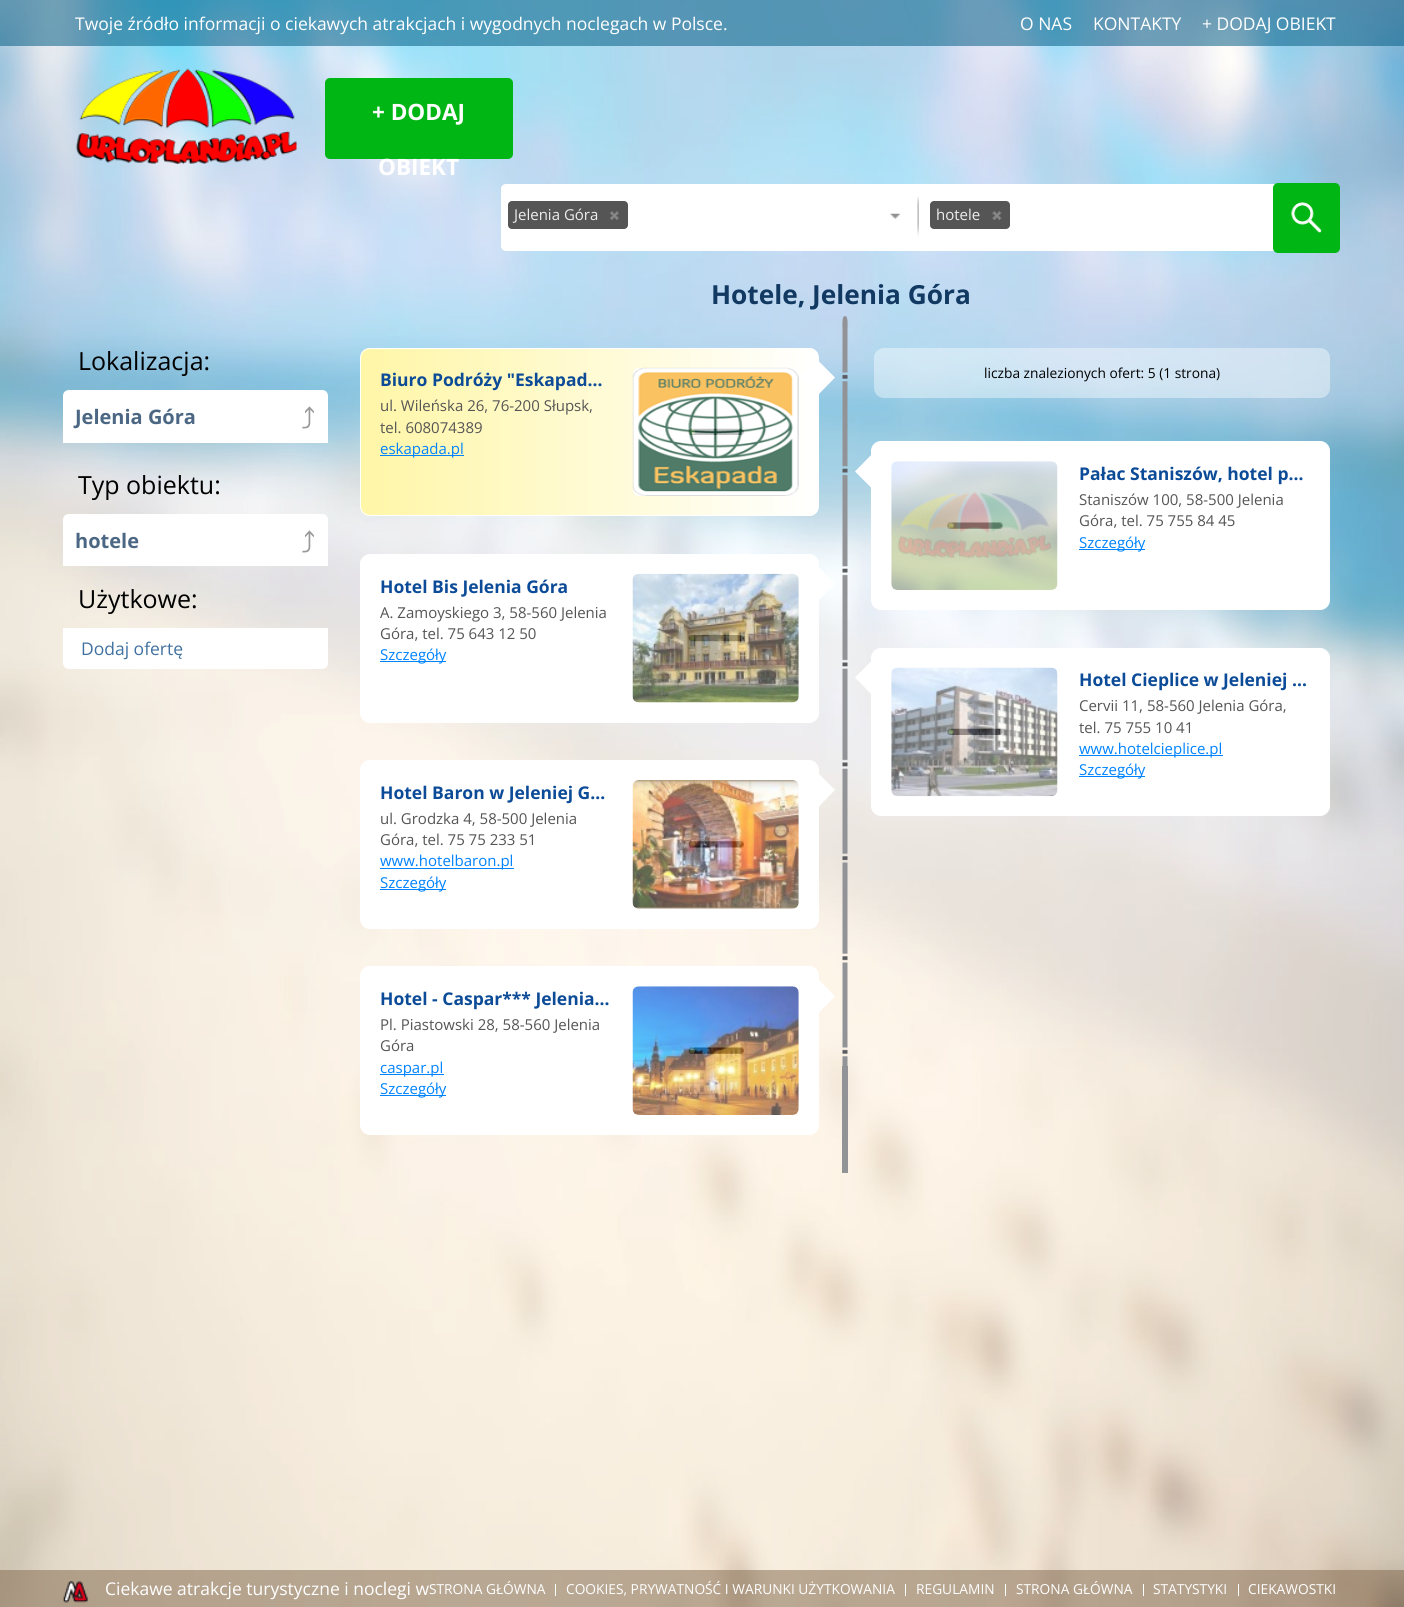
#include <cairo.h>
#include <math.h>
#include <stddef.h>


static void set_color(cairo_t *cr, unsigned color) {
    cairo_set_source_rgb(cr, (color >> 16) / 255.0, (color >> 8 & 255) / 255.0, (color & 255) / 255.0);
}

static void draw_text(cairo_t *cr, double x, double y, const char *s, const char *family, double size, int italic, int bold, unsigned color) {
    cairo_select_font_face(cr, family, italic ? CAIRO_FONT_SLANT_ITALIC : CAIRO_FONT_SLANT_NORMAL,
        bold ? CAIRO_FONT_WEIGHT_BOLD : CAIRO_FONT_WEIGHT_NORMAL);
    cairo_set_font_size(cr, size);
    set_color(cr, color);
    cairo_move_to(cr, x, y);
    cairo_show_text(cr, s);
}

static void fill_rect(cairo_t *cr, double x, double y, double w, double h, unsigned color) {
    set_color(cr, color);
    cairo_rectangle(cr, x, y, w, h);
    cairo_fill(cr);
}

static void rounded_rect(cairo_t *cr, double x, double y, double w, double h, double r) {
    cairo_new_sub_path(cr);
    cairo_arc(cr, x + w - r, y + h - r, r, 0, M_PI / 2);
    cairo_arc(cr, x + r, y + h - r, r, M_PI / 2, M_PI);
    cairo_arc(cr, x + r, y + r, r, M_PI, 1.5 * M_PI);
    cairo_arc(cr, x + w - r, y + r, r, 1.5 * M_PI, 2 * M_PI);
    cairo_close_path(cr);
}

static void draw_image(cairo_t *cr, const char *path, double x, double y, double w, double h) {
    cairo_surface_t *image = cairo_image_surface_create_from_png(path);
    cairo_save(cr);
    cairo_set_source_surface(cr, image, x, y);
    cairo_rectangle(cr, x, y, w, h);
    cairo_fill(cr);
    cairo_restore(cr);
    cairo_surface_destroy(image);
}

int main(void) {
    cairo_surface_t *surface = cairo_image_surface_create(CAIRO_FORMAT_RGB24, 1404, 1607);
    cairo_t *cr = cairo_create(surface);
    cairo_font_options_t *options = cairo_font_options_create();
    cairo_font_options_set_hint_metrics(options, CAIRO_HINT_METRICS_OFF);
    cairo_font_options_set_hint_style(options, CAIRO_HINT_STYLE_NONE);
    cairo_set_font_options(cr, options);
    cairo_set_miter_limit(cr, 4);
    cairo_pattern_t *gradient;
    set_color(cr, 0xFFFFFF);
    cairo_paint(cr);
    draw_image(cr, "assets/img1.png", 0, 0, 1404, 1607);
    cairo_set_source_rgba(cr, 0, 0.357, 0.51, 0.53);
    cairo_rectangle(cr, 0, 0, 1404, 46);
    cairo_fill(cr);
    draw_text(cr, 75, 30, "Twoje źródło informacji o ciekawych atrakcjach i wygodnych noclegach w Polsce.", "Open Sans", 17.5, 0, 0, 0xFFFFFF);
    draw_text(cr, 1020, 30, "O NAS", "Open Sans", 17.5, 0, 0, 0xFFFFFF);
    draw_text(cr, 1093, 30, "KONTAKTY", "Open Sans", 17.5, 0, 0, 0xFFFFFF);
    draw_text(cr, 1202, 30, "+ DODAJ OBIEKT", "Open Sans", 17.5, 0, 0, 0xFFFFFF);
    draw_image(cr, "assets/img2.png", 76, 68, 221, 96);
    set_color(cr, 0x00B614);
    rounded_rect(cr, 325, 78, 188, 81, 5);
    cairo_fill(cr);
    draw_text(cr, 372, 120, "+ DODAJ", "Open Sans", 22.5, 0, 1, 0xFFFFFF);
    draw_text(cr, 378, 175, "OBIEKT", "Open Sans", 22.5, 0, 1, 0xFFFFFF);
    rounded_rect(cr, 501, 184, 838, 67, 5);
    cairo_fill(cr);
    set_color(cr, 0x555555);
    rounded_rect(cr, 508, 201, 120, 28, 4);
    cairo_fill(cr);
    draw_text(cr, 514, 220, "Jelenia Góra", "Open Sans", 15, 0, 0, 0xEEEEEE);
    draw_image(cr, "assets/img3.png", 610, 211, 9, 9);
    draw_image(cr, "assets/img4.png", 890, 213, 10, 6);
    draw_image(cr, "assets/img5.png", 917, 196, 2, 40);
    set_color(cr, 0x555555);
    rounded_rect(cr, 930, 201, 80, 28, 4);
    cairo_fill(cr);
    draw_text(cr, 936, 220, "hotele", "Open Sans", 15, 0, 0, 0xEEEEEE);
    draw_image(cr, "assets/img6.png", 992, 211, 10, 9);
    set_color(cr, 0x00B614);
    rounded_rect(cr, 1273, 183, 67, 70, 5);
    cairo_fill(cr);
    draw_image(cr, "assets/img7.png", 1291, 202, 31, 31);
    draw_text(cr, 711, 304, "Hotele, Jelenia Góra", "Open Sans", 26.25, 0, 1, 0x113961);
    draw_text(cr, 78, 370, "Lokalizacja:", "Open Sans", 25, 0, 0, 0x000000);
    set_color(cr, 0xFFFFFF);
    cairo_new_path(cr);
    cairo_move_to(cr, 69, 390);
    cairo_line_to(cr, 322, 390);
    cairo_curve_to(cr, 325.5, 390, 328, 392.5, 328, 396);
    cairo_line_to(cr, 328, 443);
    cairo_line_to(cr, 63, 443);
    cairo_line_to(cr, 63, 396);
    cairo_curve_to(cr, 63, 392.5, 65.5, 390, 69, 390);
    cairo_close_path(cr);
    cairo_fill(cr);
    draw_text(cr, 75, 424, "Jelenia Góra", "Open Sans", 20, 0, 1, 0x4B6783);
    draw_text(cr, 301, 429, "⤴", "IPAGothic", 29, 0, 0, 0x999999);
    draw_text(cr, 78, 494, "Typ obiektu:", "Open Sans", 25, 0, 0, 0x000000);
    set_color(cr, 0xFFFFFF);
    cairo_new_path(cr);
    cairo_move_to(cr, 69, 514);
    cairo_line_to(cr, 322, 514);
    cairo_curve_to(cr, 325.5, 514, 328, 516.5, 328, 520);
    cairo_line_to(cr, 328, 566);
    cairo_line_to(cr, 63, 566);
    cairo_line_to(cr, 63, 520);
    cairo_curve_to(cr, 63, 516.5, 65.5, 514, 69, 514);
    cairo_close_path(cr);
    cairo_fill(cr);
    draw_text(cr, 75, 548, "hotele", "Open Sans", 20, 0, 1, 0x4B6783);
    draw_text(cr, 301, 553, "⤴", "IPAGothic", 29, 0, 0, 0x999999);
    draw_text(cr, 78, 608, "Użytkowe:", "Open Sans", 25, 0, 0, 0x000000);
    set_color(cr, 0xFFFFFF);
    cairo_new_path(cr);
    cairo_move_to(cr, 63, 628);
    cairo_line_to(cr, 328, 628);
    cairo_line_to(cr, 328, 663);
    cairo_curve_to(cr, 328, 666.5, 325.5, 669, 322, 669);
    cairo_line_to(cr, 69, 669);
    cairo_curve_to(cr, 65.5, 669, 63, 666.5, 63, 663);
    cairo_close_path(cr);
    cairo_fill(cr);
    draw_text(cr, 81, 655, "Dodaj ofertę", "Open Sans", 17.5, 0, 0, 0x4071A0);
    set_color(cr, 0x929397);
    cairo_new_path(cr);
    cairo_move_to(cr, 845, 316);
    cairo_curve_to(cr, 848.5, 316, 847.5, 326.5, 847.5, 329);
    cairo_line_to(cr, 842.5, 329);
    cairo_curve_to(cr, 842.5, 326.5, 841.5, 316, 845, 316);
    cairo_close_path(cr);
    cairo_fill(cr);
    cairo_set_source_rgba(cr, 1, 1, 1, 0.4);
    rounded_rect(cr, 874, 348, 456, 50, 10);
    cairo_fill(cr);
    draw_text(cr, 984, 378, "liczba znalezionych ofert: 5 (1 strona)", "Open Sans", 13.75, 0, 0, 0x000000);
    draw_image(cr, "assets/img8.png", 842, 328, 6, 738);
    cairo_save(cr);
    rounded_rect(cr, 360, 348, 459, 168, 10);
    cairo_clip(cr);
    gradient = cairo_pattern_create_linear(361, 432, 818, 432);
    cairo_pattern_add_color_stop_rgba(gradient, 0, 1, 0.965, 0.655, 1);
    cairo_pattern_add_color_stop_rgba(gradient, 1, 1, 1, 1, 1);
    cairo_set_source(cr, gradient);
    cairo_pattern_destroy(gradient);
    cairo_rectangle(cr, 361, 348, 457, 168);
    cairo_fill(cr);
    cairo_restore(cr);
    rounded_rect(cr, 360.5, 348.5, 458, 167, 9.5);
    set_color(cr, 0xFFFFFF);
    cairo_set_line_width(cr, 1);
    cairo_stroke(cr);
    draw_text(cr, 380, 386, "Biuro Podróży \"Eskapad…", "Open Sans", 17.5, 0, 1, 0x0C4B97);
    draw_text(cr, 380, 411, "ul. Wileńska 26, 76-200 Słupsk,", "Open Sans", 15, 0, 0, 0x555555);
    draw_text(cr, 380, 433, "tel. 608074389", "Open Sans", 15, 0, 0, 0x555555);
    fill_rect(cr, 380, 455, 84, 1, 0x0083FF);
    draw_text(cr, 380, 454, "eskapada.pl", "Open Sans", 15, 0, 0, 0x0083FF);
    set_color(cr, 0xFFFFFF);
    rounded_rect(cr, 633, 368, 166, 128, 6);
    cairo_fill(cr);
    draw_image(cr, "assets/img9.png", 688, 428, 56, 7);
    draw_image(cr, "assets/img10.png", 632, 367, 167, 129);
    cairo_new_path(cr);
    cairo_move_to(cr, 817.5, 360);
    cairo_line_to(cr, 835, 377.5);
    cairo_line_to(cr, 817.5, 395.5);
    cairo_line_to(cr, 800, 377.5);
    cairo_close_path(cr);
    cairo_fill(cr);
    rounded_rect(cr, 360.5, 554.5, 458, 168, 9.5);
    cairo_fill_preserve(cr);
    cairo_stroke(cr);
    draw_text(cr, 380, 593, "Hotel Bis Jelenia Góra", "Open Sans", 17.5, 0, 1, 0x0C4B97);
    draw_text(cr, 380, 618, "A. Zamoyskiego 3, 58-560 Jelenia", "Open Sans", 15, 0, 0, 0x555555);
    draw_text(cr, 380, 639, "Góra, tel. 75 643 12 50", "Open Sans", 15, 0, 0, 0x555555);
    fill_rect(cr, 380, 661, 66, 1, 0x0083FF);
    draw_text(cr, 380, 660, "Szczegóły", "Open Sans", 15, 0, 0, 0x0083FF);
    draw_image(cr, "assets/img11.png", 688, 635, 56, 7);
    draw_image(cr, "assets/img12.png", 632, 573, 167, 130);
    set_color(cr, 0xFFFFFF);
    cairo_new_path(cr);
    cairo_move_to(cr, 817.5, 566);
    cairo_line_to(cr, 835, 584);
    cairo_line_to(cr, 817.5, 601.5);
    cairo_line_to(cr, 800, 584);
    cairo_close_path(cr);
    cairo_fill(cr);
    rounded_rect(cr, 360.5, 760.5, 458, 168, 9.5);
    cairo_fill_preserve(cr);
    cairo_stroke(cr);
    draw_text(cr, 380, 799, "Hotel Baron w Jeleniej G…", "Open Sans", 17.5, 0, 1, 0x0C4B97);
    draw_text(cr, 380, 824, "ul. Grodzka 4, 58-500 Jelenia", "Open Sans", 15, 0, 0, 0x555555);
    draw_text(cr, 380, 845, "Góra, tel. 75 75 233 51", "Open Sans", 15, 0, 0, 0x555555);
    fill_rect(cr, 380, 868, 134, 1, 0x0083FF);
    draw_text(cr, 380, 866, "www.hotelbaron.pl", "Open Sans", 15, 0, 0, 0x0083FF);
    fill_rect(cr, 380, 889, 66, 1, 0x0083FF);
    draw_text(cr, 380, 888, "Szczegóły", "Open Sans", 15, 0, 0, 0x0083FF);
    draw_image(cr, "assets/img13.png", 688, 841, 56, 7);
    draw_image(cr, "assets/img14.png", 632, 780, 167, 129);
    set_color(cr, 0xFFFFFF);
    cairo_new_path(cr);
    cairo_move_to(cr, 817.5, 772.5);
    cairo_line_to(cr, 835, 790);
    cairo_line_to(cr, 817.5, 808);
    cairo_line_to(cr, 800, 790);
    cairo_close_path(cr);
    cairo_fill(cr);
    rounded_rect(cr, 360.5, 966.5, 458, 168, 9.5);
    cairo_fill_preserve(cr);
    cairo_stroke(cr);
    draw_text(cr, 380, 1005, "Hotel - Caspar*** Jelenia…", "Open Sans", 17.5, 0, 1, 0x0C4B97);
    draw_text(cr, 380, 1030, "Pl. Piastowski 28, 58-560 Jelenia", "Open Sans", 15, 0, 0, 0x555555);
    draw_text(cr, 380, 1051, "Góra", "Open Sans", 15, 0, 0, 0x555555);
    fill_rect(cr, 380, 1074, 64, 1, 0x0083FF);
    draw_text(cr, 380, 1073, "caspar.pl", "Open Sans", 15, 0, 0, 0x0083FF);
    fill_rect(cr, 380, 1095, 66, 1, 0x0083FF);
    draw_text(cr, 380, 1094, "Szczegóły", "Open Sans", 15, 0, 0, 0x0083FF);
    draw_image(cr, "assets/img15.png", 688, 1047, 56, 7);
    draw_image(cr, "assets/img16.png", 632, 986, 167, 129);
    set_color(cr, 0xFFFFFF);
    cairo_new_path(cr);
    cairo_move_to(cr, 817.5, 978.5);
    cairo_line_to(cr, 835, 996.5);
    cairo_line_to(cr, 817.5, 1014);
    cairo_line_to(cr, 800, 996.5);
    cairo_close_path(cr);
    cairo_fill(cr);
    rounded_rect(cr, 871.5, 441.5, 458, 168, 9.5);
    cairo_fill_preserve(cr);
    cairo_stroke(cr);
    cairo_new_path(cr);
    cairo_move_to(cr, 872.5, 453.5);
    cairo_line_to(cr, 890, 471.5);
    cairo_line_to(cr, 872.5, 489);
    cairo_line_to(cr, 855, 471.5);
    cairo_close_path(cr);
    cairo_fill(cr);
    draw_image(cr, "assets/img17.png", 947, 522, 56, 7);
    draw_image(cr, "assets/img18.png", 891, 461, 167, 129);
    draw_text(cr, 1079, 480, "Pałac Staniszów, hotel p…", "Open Sans", 17.5, 0, 1, 0x0C4B97);
    draw_text(cr, 1079, 505, "Staniszów 100, 58-500 Jelenia", "Open Sans", 15, 0, 0, 0x555555);
    draw_text(cr, 1079, 526, "Góra, tel. 75 755 84 45", "Open Sans", 15, 0, 0, 0x555555);
    fill_rect(cr, 1079, 549, 66, 1, 0x0083FF);
    draw_text(cr, 1079, 548, "Szczegóły", "Open Sans", 15, 0, 0, 0x0083FF);
    set_color(cr, 0xFFFFFF);
    rounded_rect(cr, 871.5, 648.5, 458, 167, 9.5);
    cairo_fill_preserve(cr);
    cairo_stroke(cr);
    cairo_new_path(cr);
    cairo_move_to(cr, 872.5, 660);
    cairo_line_to(cr, 890, 677.5);
    cairo_line_to(cr, 872.5, 695.5);
    cairo_line_to(cr, 855, 677.5);
    cairo_close_path(cr);
    cairo_fill(cr);
    draw_image(cr, "assets/img19.png", 947, 728, 56, 7);
    draw_image(cr, "assets/img20.png", 891, 667, 167, 130);
    draw_text(cr, 1079, 686, "Hotel Cieplice w Jeleniej …", "Open Sans", 17.5, 0, 1, 0x0C4B97);
    draw_text(cr, 1079, 711, "Cervii 11, 58-560 Jelenia Góra,", "Open Sans", 15, 0, 0, 0x555555);
    draw_text(cr, 1079, 733, "tel. 75 755 10 41", "Open Sans", 15, 0, 0, 0x555555);
    fill_rect(cr, 1079, 755, 144, 1, 0x0083FF);
    draw_text(cr, 1079, 754, "www.hotelcieplice.pl", "Open Sans", 15, 0, 0, 0x0083FF);
    fill_rect(cr, 1079, 776, 66, 1, 0x0083FF);
    draw_text(cr, 1079, 775, "Szczegóły", "Open Sans", 15, 0, 0, 0x0083FF);
    fill_rect(cr, 842, 1066, 6, 107, 0x929397);
    cairo_set_source_rgba(cr, 0.514, 0.42, 0.31, 0.53);
    cairo_rectangle(cr, 0, 1570, 1404, 37);
    cairo_fill(cr);
    draw_image(cr, "assets/img21.png", 62, 1581, 27, 22);
    draw_text(cr, 105, 1595, "Ciekawe atrakcje turystyczne i noclegi w", "Open Sans", 17.5, 0, 0, 0xFFFFFF);
    draw_text(cr, 429, 1594, "STRONA GŁÓWNA", "Open Sans", 13.75, 0, 0, 0xFFFFFF);
    fill_rect(cr, 555, 1584, 1, 12, 0xFFFFFF);
    draw_text(cr, 566, 1594, "COOKIES, PRYWATNOŚĆ I WARUNKI UŻYTKOWANIA", "Open Sans", 13.75, 0, 0, 0xFFFFFF);
    fill_rect(cr, 905, 1584, 1, 12, 0xFFFFFF);
    draw_text(cr, 916, 1594, "REGULAMIN", "Open Sans", 13.75, 0, 0, 0xFFFFFF);
    fill_rect(cr, 1005, 1584, 1, 12, 0xFFFFFF);
    draw_text(cr, 1016, 1594, "STRONA GŁÓWNA", "Open Sans", 13.75, 0, 0, 0xFFFFFF);
    fill_rect(cr, 1143, 1584, 1, 12, 0xFFFFFF);
    draw_text(cr, 1153, 1594, "STATYSTYKI", "Open Sans", 13.75, 0, 0, 0xFFFFFF);
    fill_rect(cr, 1238, 1584, 1, 12, 0xFFFFFF);
    draw_text(cr, 1248, 1594, "CIEKAWOSTKI", "Open Sans", 13.75, 0, 0, 0xFFFFFF);
    cairo_surface_write_to_png(surface, "output.png");
    cairo_font_options_destroy(options);
    cairo_destroy(cr);
    cairo_surface_destroy(surface);
    return 0;
}
